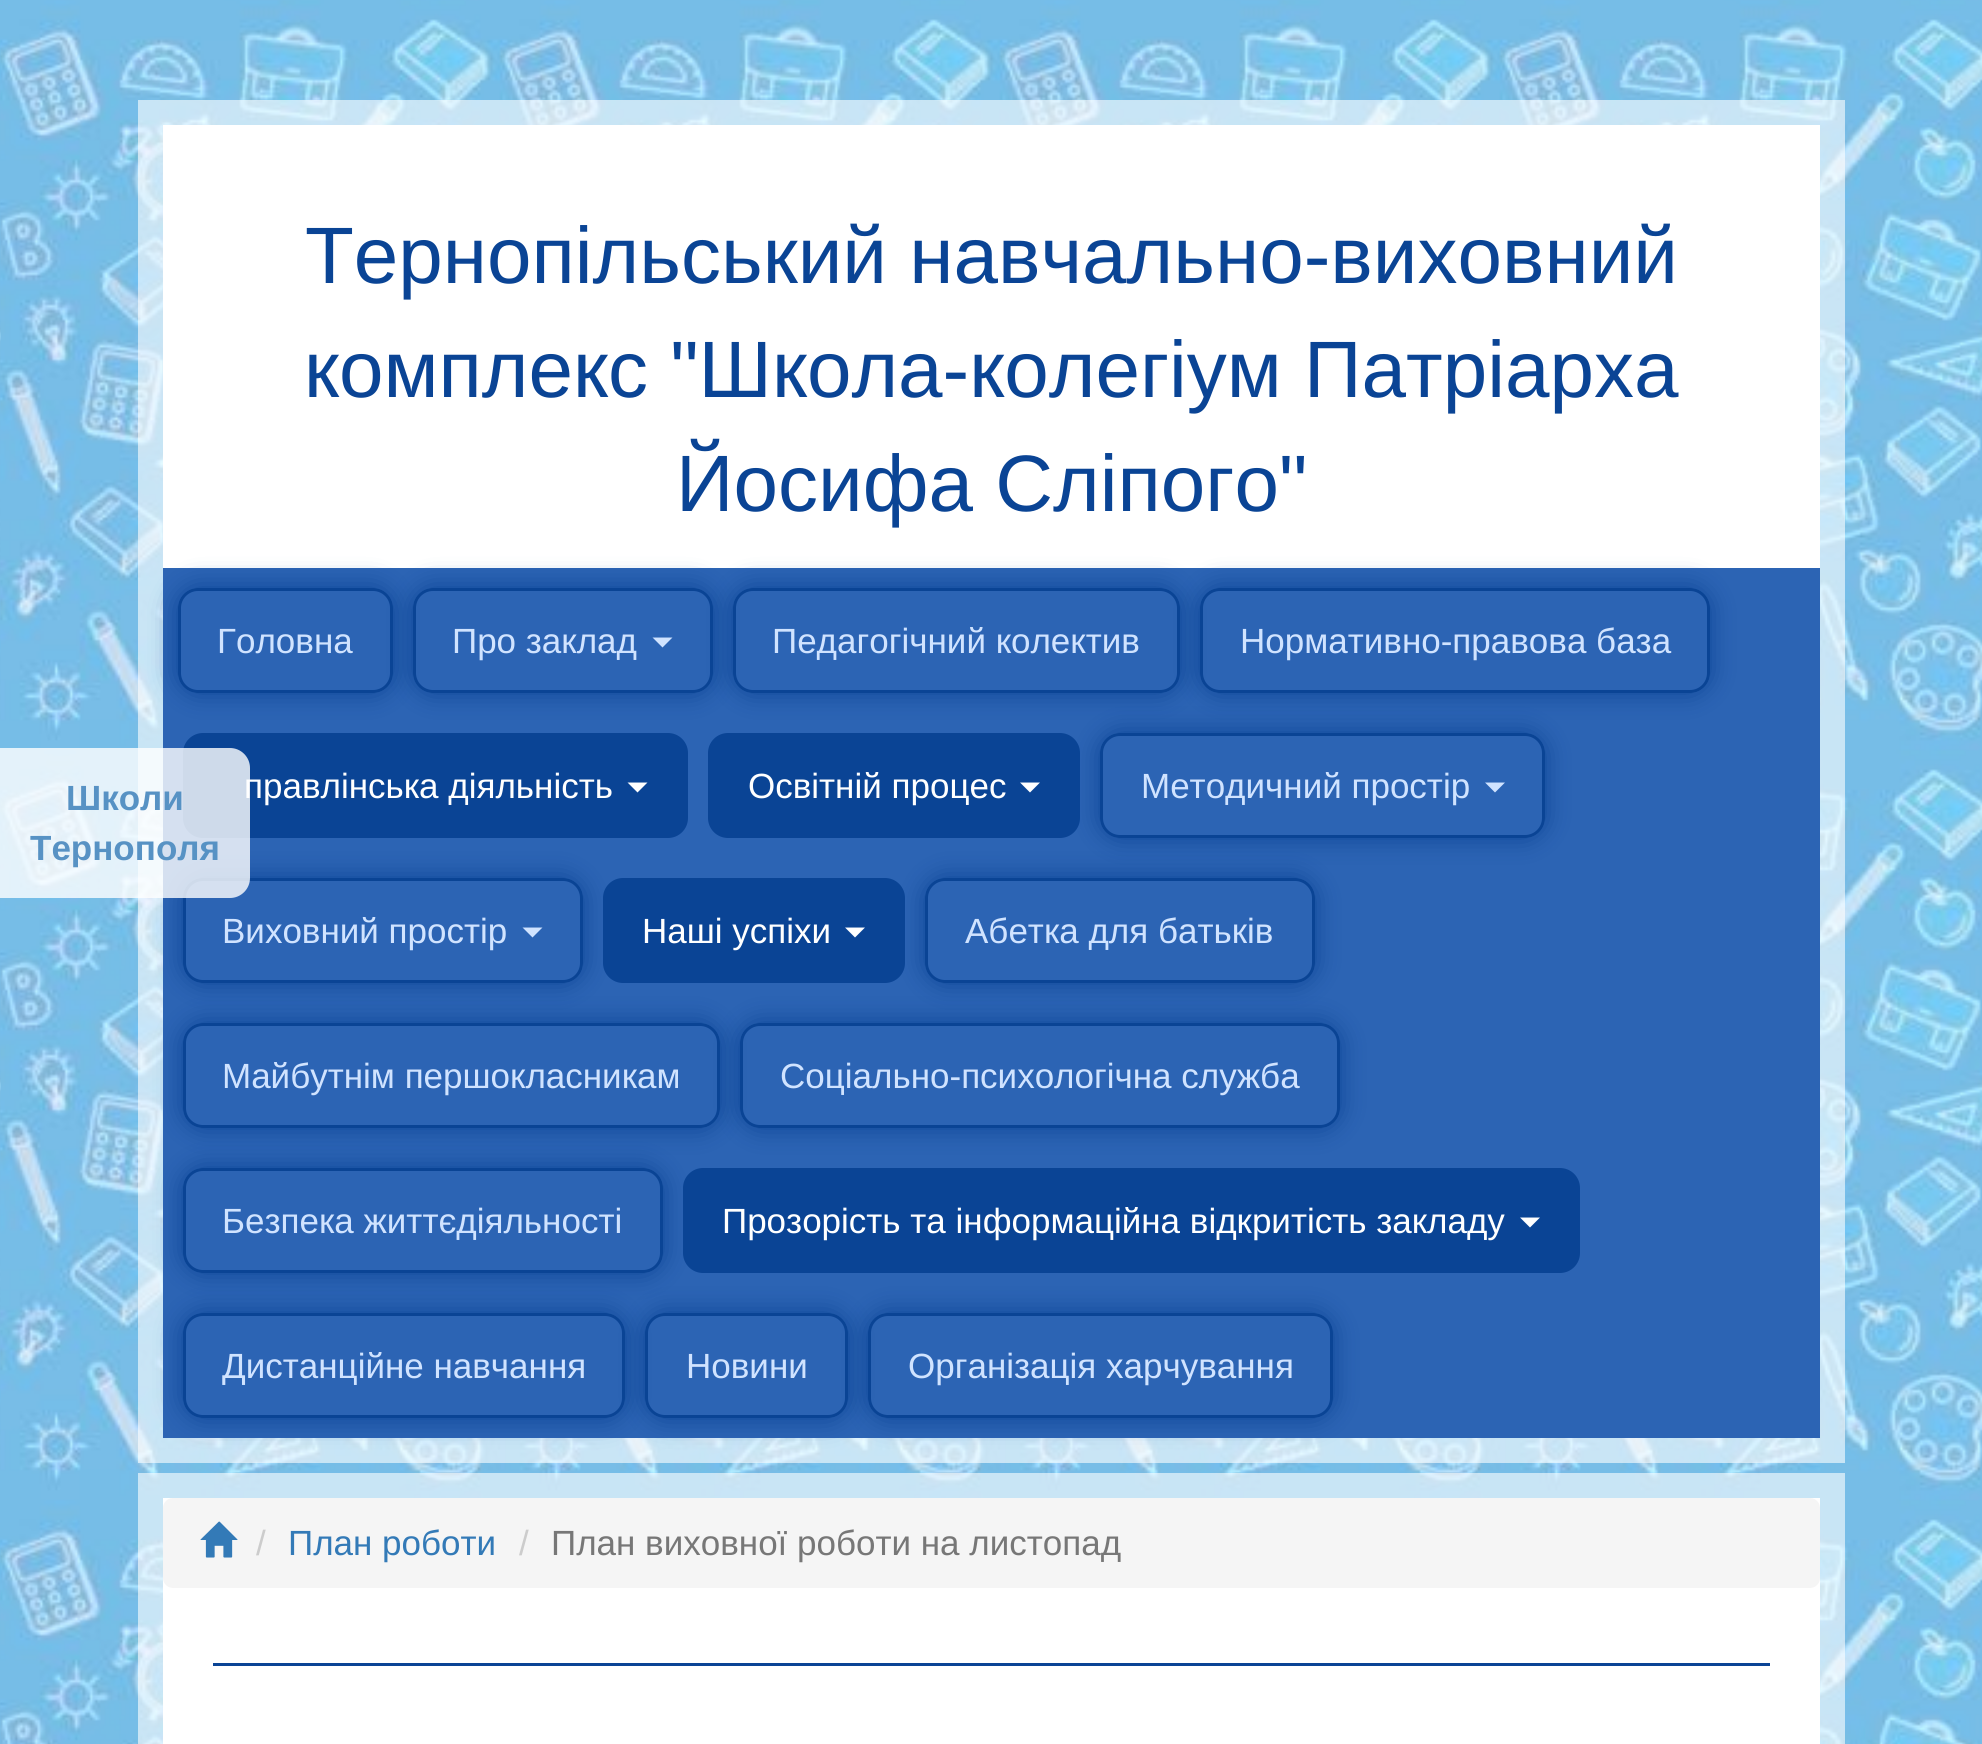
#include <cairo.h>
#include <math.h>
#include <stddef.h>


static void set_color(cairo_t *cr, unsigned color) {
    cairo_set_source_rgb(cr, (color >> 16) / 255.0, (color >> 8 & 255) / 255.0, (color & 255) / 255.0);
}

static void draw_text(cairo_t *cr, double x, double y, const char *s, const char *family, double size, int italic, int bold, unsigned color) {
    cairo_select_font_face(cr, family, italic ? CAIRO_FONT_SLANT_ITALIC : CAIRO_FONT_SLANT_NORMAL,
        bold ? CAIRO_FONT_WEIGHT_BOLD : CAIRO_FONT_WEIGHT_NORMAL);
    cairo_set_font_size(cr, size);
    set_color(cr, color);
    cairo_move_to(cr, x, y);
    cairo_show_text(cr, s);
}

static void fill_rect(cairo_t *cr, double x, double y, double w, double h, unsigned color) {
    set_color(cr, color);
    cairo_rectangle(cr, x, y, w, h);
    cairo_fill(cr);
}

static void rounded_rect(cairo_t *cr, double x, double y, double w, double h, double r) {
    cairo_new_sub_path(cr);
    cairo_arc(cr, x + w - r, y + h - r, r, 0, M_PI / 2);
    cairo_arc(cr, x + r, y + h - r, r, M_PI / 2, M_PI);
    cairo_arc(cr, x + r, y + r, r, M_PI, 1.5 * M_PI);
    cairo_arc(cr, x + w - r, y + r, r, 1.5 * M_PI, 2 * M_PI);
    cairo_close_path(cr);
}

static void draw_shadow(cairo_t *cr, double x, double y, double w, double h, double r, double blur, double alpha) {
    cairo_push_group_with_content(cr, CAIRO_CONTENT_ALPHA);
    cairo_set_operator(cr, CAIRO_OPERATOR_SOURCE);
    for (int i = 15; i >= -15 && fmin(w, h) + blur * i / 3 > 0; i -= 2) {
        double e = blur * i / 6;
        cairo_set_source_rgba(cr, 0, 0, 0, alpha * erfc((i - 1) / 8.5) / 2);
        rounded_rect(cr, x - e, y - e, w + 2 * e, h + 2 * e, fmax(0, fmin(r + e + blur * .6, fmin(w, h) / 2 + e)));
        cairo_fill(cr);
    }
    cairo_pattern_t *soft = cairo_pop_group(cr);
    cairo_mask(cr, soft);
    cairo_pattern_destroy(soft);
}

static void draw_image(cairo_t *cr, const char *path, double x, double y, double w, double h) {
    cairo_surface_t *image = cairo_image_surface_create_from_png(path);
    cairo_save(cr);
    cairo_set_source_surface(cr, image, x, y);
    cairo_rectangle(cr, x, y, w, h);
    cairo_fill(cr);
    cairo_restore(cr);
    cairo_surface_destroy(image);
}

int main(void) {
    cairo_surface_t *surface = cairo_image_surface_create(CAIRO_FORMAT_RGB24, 1982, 1744);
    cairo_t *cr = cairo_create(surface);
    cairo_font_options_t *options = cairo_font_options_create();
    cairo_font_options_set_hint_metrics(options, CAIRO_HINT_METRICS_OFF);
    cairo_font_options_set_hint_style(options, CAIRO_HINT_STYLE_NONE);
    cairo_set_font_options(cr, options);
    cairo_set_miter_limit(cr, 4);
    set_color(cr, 0xFFFFFF);
    cairo_paint(cr);
    draw_image(cr, "assets/img1.png", 0, 0, 1982, 1744);
    cairo_set_source_rgba(cr, 1, 1, 1, 0.6);
    cairo_rectangle(cr, 138, 100, 1707, 1363);
    cairo_fill(cr);
    fill_rect(cr, 163, 568, 1657, 870, 0x2C64B4);
    set_color(cr, 0x0A4495);
    rounded_rect(cr, 184.5, 734.5, 502, 102, 18.5);
    cairo_fill_preserve(cr);
    cairo_set_line_width(cr, 3);
    cairo_stroke(cr);
    draw_text(cr, 244, 798, "правлінська діяльність", "Liberation Sans", 35, 0, 0, 0xFFFFFF);
    cairo_save(cr);
    cairo_set_fill_rule(cr, CAIRO_FILL_RULE_EVEN_ODD);
    cairo_new_path(cr);
    cairo_move_to(cr, 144, 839);
    cairo_line_to(cr, 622, 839);
    cairo_line_to(cr, 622, 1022);
    cairo_line_to(cr, 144, 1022);
    cairo_close_path(cr);
    cairo_move_to(cr, 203, 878);
    cairo_line_to(cr, 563, 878);
    cairo_curve_to(cr, 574, 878, 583, 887, 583, 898);
    cairo_line_to(cr, 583, 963);
    cairo_curve_to(cr, 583, 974, 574, 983, 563, 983);
    cairo_line_to(cr, 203, 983);
    cairo_curve_to(cr, 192, 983, 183, 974, 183, 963);
    cairo_line_to(cr, 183, 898);
    cairo_curve_to(cr, 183, 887, 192, 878, 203, 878);
    cairo_close_path(cr);
    cairo_clip(cr);
    set_color(cr, 0x0A4495);
    draw_shadow(cr, 183, 878, 400, 105, 20, 12.5, 1);
    cairo_restore(cr);
    rounded_rect(cr, 184.5, 879.5, 397, 102, 18.5);
    set_color(cr, 0x0A4495);
    cairo_stroke(cr);
    cairo_set_source_rgba(cr, 1, 1, 1, 0.8);
    cairo_new_path(cr);
    cairo_move_to(cr, 0, 748);
    cairo_line_to(cr, 230, 748);
    cairo_curve_to(cr, 241, 748, 250, 757, 250, 768);
    cairo_line_to(cr, 250, 878);
    cairo_curve_to(cr, 250, 889, 241, 898, 230, 898);
    cairo_line_to(cr, 0, 898);
    cairo_close_path(cr);
    cairo_fill(cr);
    draw_text(cr, 66, 810, "Школи", "Liberation Sans", 35, 0, 1, 0x5792C4);
    draw_text(cr, 30, 860, "Тернополя", "Liberation Sans", 35, 0, 1, 0x5792C4);
    fill_rect(cr, 163, 125, 1657, 443, 0xFFFFFF);
    draw_text(cr, 305, 283, "Тернопільський навчально-виховний", "Liberation Sans", 80, 0, 0, 0x0A4495);
    draw_text(cr, 304, 397, "комплекс \"Школа-колегіум Патріарха", "Liberation Sans", 80, 0, 0, 0x0A4495);
    draw_text(cr, 676, 511, "Йосифа Сліпого\"", "Liberation Sans", 80, 0, 0, 0x0A4495);
    cairo_save(cr);
    cairo_set_fill_rule(cr, CAIRO_FILL_RULE_EVEN_ODD);
    cairo_new_path(cr);
    cairo_move_to(cr, 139, 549);
    cairo_line_to(cr, 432, 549);
    cairo_line_to(cr, 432, 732);
    cairo_line_to(cr, 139, 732);
    cairo_close_path(cr);
    cairo_move_to(cr, 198, 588);
    cairo_line_to(cr, 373, 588);
    cairo_curve_to(cr, 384, 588, 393, 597, 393, 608);
    cairo_line_to(cr, 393, 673);
    cairo_curve_to(cr, 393, 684, 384, 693, 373, 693);
    cairo_line_to(cr, 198, 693);
    cairo_curve_to(cr, 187, 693, 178, 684, 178, 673);
    cairo_line_to(cr, 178, 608);
    cairo_curve_to(cr, 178, 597, 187, 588, 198, 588);
    cairo_close_path(cr);
    cairo_clip(cr);
    set_color(cr, 0x0A4495);
    draw_shadow(cr, 178, 588, 215, 105, 20, 12.5, 1);
    cairo_restore(cr);
    rounded_rect(cr, 179.5, 589.5, 212, 102, 18.5);
    cairo_stroke(cr);
    draw_text(cr, 217, 653, "Головна", "Liberation Sans", 35, 0, 0, 0xD0E3FF);
    cairo_save(cr);
    cairo_set_fill_rule(cr, CAIRO_FILL_RULE_EVEN_ODD);
    cairo_new_path(cr);
    cairo_move_to(cr, 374, 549);
    cairo_line_to(cr, 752, 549);
    cairo_line_to(cr, 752, 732);
    cairo_line_to(cr, 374, 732);
    cairo_close_path(cr);
    cairo_move_to(cr, 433, 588);
    cairo_line_to(cr, 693, 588);
    cairo_curve_to(cr, 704, 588, 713, 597, 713, 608);
    cairo_line_to(cr, 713, 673);
    cairo_curve_to(cr, 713, 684, 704, 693, 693, 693);
    cairo_line_to(cr, 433, 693);
    cairo_curve_to(cr, 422, 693, 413, 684, 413, 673);
    cairo_line_to(cr, 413, 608);
    cairo_curve_to(cr, 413, 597, 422, 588, 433, 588);
    cairo_close_path(cr);
    cairo_clip(cr);
    set_color(cr, 0x0A4495);
    draw_shadow(cr, 413, 588, 300, 105, 20, 12.5, 1);
    cairo_restore(cr);
    rounded_rect(cr, 414.5, 589.5, 297, 102, 18.5);
    set_color(cr, 0x0A4495);
    cairo_stroke(cr);
    draw_text(cr, 452, 653, "Про заклад", "Liberation Sans", 35, 0, 0, 0xD0E3FF);
    cairo_new_path(cr);
    cairo_move_to(cr, 652.5, 637.5);
    cairo_line_to(cr, 672.5, 637.5);
    cairo_line_to(cr, 662.5, 647.5);
    cairo_close_path(cr);
    cairo_fill(cr);
    cairo_save(cr);
    cairo_set_fill_rule(cr, CAIRO_FILL_RULE_EVEN_ODD);
    cairo_new_path(cr);
    cairo_move_to(cr, 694, 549);
    cairo_line_to(cr, 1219, 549);
    cairo_line_to(cr, 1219, 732);
    cairo_line_to(cr, 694, 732);
    cairo_close_path(cr);
    cairo_move_to(cr, 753, 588);
    cairo_line_to(cr, 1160, 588);
    cairo_curve_to(cr, 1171, 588, 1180, 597, 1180, 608);
    cairo_line_to(cr, 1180, 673);
    cairo_curve_to(cr, 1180, 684, 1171, 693, 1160, 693);
    cairo_line_to(cr, 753, 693);
    cairo_curve_to(cr, 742, 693, 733, 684, 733, 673);
    cairo_line_to(cr, 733, 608);
    cairo_curve_to(cr, 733, 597, 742, 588, 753, 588);
    cairo_close_path(cr);
    cairo_clip(cr);
    set_color(cr, 0x0A4495);
    draw_shadow(cr, 733, 588, 447, 105, 20, 12.5, 1);
    cairo_restore(cr);
    rounded_rect(cr, 734.5, 589.5, 444, 102, 18.5);
    set_color(cr, 0x0A4495);
    cairo_stroke(cr);
    draw_text(cr, 772, 653, "Педагогічний колектив", "Liberation Sans", 35, 0, 0, 0xD0E3FF);
    cairo_save(cr);
    cairo_set_fill_rule(cr, CAIRO_FILL_RULE_EVEN_ODD);
    cairo_new_path(cr);
    cairo_move_to(cr, 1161, 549);
    cairo_line_to(cr, 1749, 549);
    cairo_line_to(cr, 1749, 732);
    cairo_line_to(cr, 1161, 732);
    cairo_close_path(cr);
    cairo_move_to(cr, 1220, 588);
    cairo_line_to(cr, 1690, 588);
    cairo_curve_to(cr, 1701, 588, 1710, 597, 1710, 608);
    cairo_line_to(cr, 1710, 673);
    cairo_curve_to(cr, 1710, 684, 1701, 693, 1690, 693);
    cairo_line_to(cr, 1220, 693);
    cairo_curve_to(cr, 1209, 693, 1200, 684, 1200, 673);
    cairo_line_to(cr, 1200, 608);
    cairo_curve_to(cr, 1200, 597, 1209, 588, 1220, 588);
    cairo_close_path(cr);
    cairo_clip(cr);
    set_color(cr, 0x0A4495);
    draw_shadow(cr, 1200, 588, 510, 105, 20, 12.5, 1);
    cairo_restore(cr);
    rounded_rect(cr, 1201.5, 589.5, 507, 102, 18.5);
    set_color(cr, 0x0A4495);
    cairo_stroke(cr);
    draw_text(cr, 1240, 653, "Нормативно-правова база", "Liberation Sans", 35, 0, 0, 0xD0E3FF);
    set_color(cr, 0xFFFFFF);
    cairo_new_path(cr);
    cairo_move_to(cr, 627.5, 782.5);
    cairo_line_to(cr, 647.5, 782.5);
    cairo_line_to(cr, 637.5, 792.5);
    cairo_close_path(cr);
    cairo_fill(cr);
    set_color(cr, 0x0A4495);
    rounded_rect(cr, 709.5, 734.5, 369, 102, 18.5);
    cairo_fill_preserve(cr);
    cairo_stroke(cr);
    draw_text(cr, 748, 798, "Освітній процес", "Liberation Sans", 35, 0, 0, 0xFFFFFF);
    cairo_new_path(cr);
    cairo_move_to(cr, 1020, 782.5);
    cairo_line_to(cr, 1040, 782.5);
    cairo_line_to(cr, 1030, 792.5);
    cairo_close_path(cr);
    cairo_fill(cr);
    cairo_save(cr);
    cairo_set_fill_rule(cr, CAIRO_FILL_RULE_EVEN_ODD);
    cairo_new_path(cr);
    cairo_move_to(cr, 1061, 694);
    cairo_line_to(cr, 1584, 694);
    cairo_line_to(cr, 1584, 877);
    cairo_line_to(cr, 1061, 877);
    cairo_close_path(cr);
    cairo_move_to(cr, 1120, 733);
    cairo_line_to(cr, 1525, 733);
    cairo_curve_to(cr, 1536, 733, 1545, 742, 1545, 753);
    cairo_line_to(cr, 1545, 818);
    cairo_curve_to(cr, 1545, 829, 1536, 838, 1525, 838);
    cairo_line_to(cr, 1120, 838);
    cairo_curve_to(cr, 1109, 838, 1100, 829, 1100, 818);
    cairo_line_to(cr, 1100, 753);
    cairo_curve_to(cr, 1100, 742, 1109, 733, 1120, 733);
    cairo_close_path(cr);
    cairo_clip(cr);
    set_color(cr, 0x0A4495);
    draw_shadow(cr, 1100, 733, 445, 105, 20, 12.5, 1);
    cairo_restore(cr);
    rounded_rect(cr, 1101.5, 734.5, 442, 102, 18.5);
    set_color(cr, 0x0A4495);
    cairo_stroke(cr);
    draw_text(cr, 1141, 798, "Методичний простір", "Liberation Sans", 35, 0, 0, 0xD0E3FF);
    cairo_new_path(cr);
    cairo_move_to(cr, 1485, 782.5);
    cairo_line_to(cr, 1505, 782.5);
    cairo_line_to(cr, 1495, 792.5);
    cairo_close_path(cr);
    cairo_fill(cr);
    draw_text(cr, 222, 943, "Виховний простір", "Liberation Sans", 35, 0, 0, 0xD0E3FF);
    cairo_new_path(cr);
    cairo_move_to(cr, 522.5, 927.5);
    cairo_line_to(cr, 542.5, 927.5);
    cairo_line_to(cr, 532.5, 937.5);
    cairo_close_path(cr);
    cairo_fill(cr);
    set_color(cr, 0x0A4495);
    rounded_rect(cr, 604.5, 879.5, 299, 102, 18.5);
    cairo_fill_preserve(cr);
    cairo_stroke(cr);
    draw_text(cr, 642, 943, "Наші успіхи", "Liberation Sans", 35, 0, 0, 0xFFFFFF);
    cairo_new_path(cr);
    cairo_move_to(cr, 845, 927.5);
    cairo_line_to(cr, 865, 927.5);
    cairo_line_to(cr, 855, 937.5);
    cairo_close_path(cr);
    cairo_fill(cr);
    cairo_save(cr);
    cairo_set_fill_rule(cr, CAIRO_FILL_RULE_EVEN_ODD);
    cairo_new_path(cr);
    cairo_move_to(cr, 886, 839);
    cairo_line_to(cr, 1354, 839);
    cairo_line_to(cr, 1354, 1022);
    cairo_line_to(cr, 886, 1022);
    cairo_close_path(cr);
    cairo_move_to(cr, 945, 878);
    cairo_line_to(cr, 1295, 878);
    cairo_curve_to(cr, 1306, 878, 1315, 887, 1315, 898);
    cairo_line_to(cr, 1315, 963);
    cairo_curve_to(cr, 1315, 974, 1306, 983, 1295, 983);
    cairo_line_to(cr, 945, 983);
    cairo_curve_to(cr, 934, 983, 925, 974, 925, 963);
    cairo_line_to(cr, 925, 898);
    cairo_curve_to(cr, 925, 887, 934, 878, 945, 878);
    cairo_close_path(cr);
    cairo_clip(cr);
    set_color(cr, 0x0A4495);
    draw_shadow(cr, 925, 878, 390, 105, 20, 12.5, 1);
    cairo_restore(cr);
    rounded_rect(cr, 926.5, 879.5, 387, 102, 18.5);
    set_color(cr, 0x0A4495);
    cairo_stroke(cr);
    draw_text(cr, 965, 943, "Абетка для батьків", "Liberation Sans", 35, 0, 0, 0xD0E3FF);
    cairo_save(cr);
    cairo_set_fill_rule(cr, CAIRO_FILL_RULE_EVEN_ODD);
    cairo_new_path(cr);
    cairo_move_to(cr, 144, 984);
    cairo_line_to(cr, 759, 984);
    cairo_line_to(cr, 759, 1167);
    cairo_line_to(cr, 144, 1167);
    cairo_close_path(cr);
    cairo_move_to(cr, 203, 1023);
    cairo_line_to(cr, 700, 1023);
    cairo_curve_to(cr, 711, 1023, 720, 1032, 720, 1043);
    cairo_line_to(cr, 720, 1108);
    cairo_curve_to(cr, 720, 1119, 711, 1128, 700, 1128);
    cairo_line_to(cr, 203, 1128);
    cairo_curve_to(cr, 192, 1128, 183, 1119, 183, 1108);
    cairo_line_to(cr, 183, 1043);
    cairo_curve_to(cr, 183, 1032, 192, 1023, 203, 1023);
    cairo_close_path(cr);
    cairo_clip(cr);
    set_color(cr, 0x0A4495);
    draw_shadow(cr, 183, 1023, 537, 105, 20, 12.5, 1);
    cairo_restore(cr);
    rounded_rect(cr, 184.5, 1024.5, 534, 102, 18.5);
    set_color(cr, 0x0A4495);
    cairo_stroke(cr);
    draw_text(cr, 222, 1088, "Майбутнім першокласникам", "Liberation Sans", 35, 0, 0, 0xD0E3FF);
    cairo_save(cr);
    cairo_set_fill_rule(cr, CAIRO_FILL_RULE_EVEN_ODD);
    cairo_new_path(cr);
    cairo_move_to(cr, 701, 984);
    cairo_line_to(cr, 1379, 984);
    cairo_line_to(cr, 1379, 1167);
    cairo_line_to(cr, 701, 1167);
    cairo_close_path(cr);
    cairo_move_to(cr, 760, 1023);
    cairo_line_to(cr, 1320, 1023);
    cairo_curve_to(cr, 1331, 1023, 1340, 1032, 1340, 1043);
    cairo_line_to(cr, 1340, 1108);
    cairo_curve_to(cr, 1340, 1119, 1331, 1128, 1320, 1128);
    cairo_line_to(cr, 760, 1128);
    cairo_curve_to(cr, 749, 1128, 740, 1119, 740, 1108);
    cairo_line_to(cr, 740, 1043);
    cairo_curve_to(cr, 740, 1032, 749, 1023, 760, 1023);
    cairo_close_path(cr);
    cairo_clip(cr);
    set_color(cr, 0x0A4495);
    draw_shadow(cr, 740, 1023, 600, 105, 20, 12.5, 1);
    cairo_restore(cr);
    rounded_rect(cr, 741.5, 1024.5, 597, 102, 18.5);
    set_color(cr, 0x0A4495);
    cairo_stroke(cr);
    draw_text(cr, 780, 1088, "Соціально-психологічна служба", "Liberation Sans", 35, 0, 0, 0xD0E3FF);
    cairo_save(cr);
    cairo_set_fill_rule(cr, CAIRO_FILL_RULE_EVEN_ODD);
    cairo_new_path(cr);
    cairo_move_to(cr, 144, 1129);
    cairo_line_to(cr, 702, 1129);
    cairo_line_to(cr, 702, 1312);
    cairo_line_to(cr, 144, 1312);
    cairo_close_path(cr);
    cairo_move_to(cr, 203, 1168);
    cairo_line_to(cr, 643, 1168);
    cairo_curve_to(cr, 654, 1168, 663, 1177, 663, 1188);
    cairo_line_to(cr, 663, 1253);
    cairo_curve_to(cr, 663, 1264, 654, 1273, 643, 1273);
    cairo_line_to(cr, 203, 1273);
    cairo_curve_to(cr, 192, 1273, 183, 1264, 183, 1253);
    cairo_line_to(cr, 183, 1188);
    cairo_curve_to(cr, 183, 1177, 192, 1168, 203, 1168);
    cairo_close_path(cr);
    cairo_clip(cr);
    set_color(cr, 0x0A4495);
    draw_shadow(cr, 183, 1168, 480, 105, 20, 12.5, 1);
    cairo_restore(cr);
    rounded_rect(cr, 184.5, 1169.5, 477, 102, 18.5);
    set_color(cr, 0x0A4495);
    cairo_stroke(cr);
    draw_text(cr, 222, 1233, "Безпека життєдіяльності", "Liberation Sans", 35, 0, 0, 0xD0E3FF);
    set_color(cr, 0x0A4495);
    rounded_rect(cr, 684.5, 1169.5, 894, 102, 18.5);
    cairo_fill_preserve(cr);
    cairo_stroke(cr);
    draw_text(cr, 722, 1233, "Прозорість та інформаційна відкритість закладу", "Liberation Sans", 35, 0, 0, 0xFFFFFF);
    cairo_new_path(cr);
    cairo_move_to(cr, 1520, 1217.5);
    cairo_line_to(cr, 1540, 1217.5);
    cairo_line_to(cr, 1530, 1227.5);
    cairo_close_path(cr);
    cairo_fill(cr);
    cairo_save(cr);
    cairo_set_fill_rule(cr, CAIRO_FILL_RULE_EVEN_ODD);
    cairo_new_path(cr);
    cairo_move_to(cr, 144, 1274);
    cairo_line_to(cr, 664, 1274);
    cairo_line_to(cr, 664, 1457);
    cairo_line_to(cr, 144, 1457);
    cairo_close_path(cr);
    cairo_move_to(cr, 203, 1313);
    cairo_line_to(cr, 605, 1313);
    cairo_curve_to(cr, 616, 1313, 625, 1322, 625, 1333);
    cairo_line_to(cr, 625, 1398);
    cairo_curve_to(cr, 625, 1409, 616, 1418, 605, 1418);
    cairo_line_to(cr, 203, 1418);
    cairo_curve_to(cr, 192, 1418, 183, 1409, 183, 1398);
    cairo_line_to(cr, 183, 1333);
    cairo_curve_to(cr, 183, 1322, 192, 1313, 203, 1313);
    cairo_close_path(cr);
    cairo_clip(cr);
    set_color(cr, 0x0A4495);
    draw_shadow(cr, 183, 1313, 442, 105, 20, 12.5, 1);
    cairo_restore(cr);
    rounded_rect(cr, 184.5, 1314.5, 439, 102, 18.5);
    set_color(cr, 0x0A4495);
    cairo_stroke(cr);
    draw_text(cr, 222, 1378, "Дистанційне навчання", "Liberation Sans", 35, 0, 0, 0xD0E3FF);
    cairo_save(cr);
    cairo_set_fill_rule(cr, CAIRO_FILL_RULE_EVEN_ODD);
    cairo_new_path(cr);
    cairo_move_to(cr, 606, 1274);
    cairo_line_to(cr, 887, 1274);
    cairo_line_to(cr, 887, 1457);
    cairo_line_to(cr, 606, 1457);
    cairo_close_path(cr);
    cairo_move_to(cr, 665, 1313);
    cairo_line_to(cr, 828, 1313);
    cairo_curve_to(cr, 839, 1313, 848, 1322, 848, 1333);
    cairo_line_to(cr, 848, 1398);
    cairo_curve_to(cr, 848, 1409, 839, 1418, 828, 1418);
    cairo_line_to(cr, 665, 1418);
    cairo_curve_to(cr, 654, 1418, 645, 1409, 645, 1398);
    cairo_line_to(cr, 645, 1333);
    cairo_curve_to(cr, 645, 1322, 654, 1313, 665, 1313);
    cairo_close_path(cr);
    cairo_clip(cr);
    set_color(cr, 0x0A4495);
    draw_shadow(cr, 645, 1313, 203, 105, 20, 12.5, 1);
    cairo_restore(cr);
    rounded_rect(cr, 646.5, 1314.5, 200, 102, 18.5);
    set_color(cr, 0x0A4495);
    cairo_stroke(cr);
    draw_text(cr, 686, 1378, "Новини", "Liberation Sans", 35, 0, 0, 0xD0E3FF);
    cairo_save(cr);
    cairo_set_fill_rule(cr, CAIRO_FILL_RULE_EVEN_ODD);
    cairo_new_path(cr);
    cairo_move_to(cr, 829, 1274);
    cairo_line_to(cr, 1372, 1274);
    cairo_line_to(cr, 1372, 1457);
    cairo_line_to(cr, 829, 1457);
    cairo_close_path(cr);
    cairo_move_to(cr, 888, 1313);
    cairo_line_to(cr, 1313, 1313);
    cairo_curve_to(cr, 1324, 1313, 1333, 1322, 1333, 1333);
    cairo_line_to(cr, 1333, 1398);
    cairo_curve_to(cr, 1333, 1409, 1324, 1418, 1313, 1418);
    cairo_line_to(cr, 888, 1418);
    cairo_curve_to(cr, 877, 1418, 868, 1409, 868, 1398);
    cairo_line_to(cr, 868, 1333);
    cairo_curve_to(cr, 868, 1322, 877, 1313, 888, 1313);
    cairo_close_path(cr);
    cairo_clip(cr);
    set_color(cr, 0x0A4495);
    draw_shadow(cr, 868, 1313, 465, 105, 20, 12.5, 1);
    cairo_restore(cr);
    rounded_rect(cr, 869.5, 1314.5, 462, 102, 18.5);
    set_color(cr, 0x0A4495);
    cairo_stroke(cr);
    draw_text(cr, 908, 1378, "Організація харчування", "Liberation Sans", 35, 0, 0, 0xD0E3FF);
    cairo_set_source_rgba(cr, 1, 1, 1, 0.6);
    cairo_rectangle(cr, 138, 1473, 1707, 271);
    cairo_fill(cr);
    fill_rect(cr, 163, 1498, 1657, 246, 0xFFFFFF);
    set_color(cr, 0xF5F5F5);
    rounded_rect(cr, 163, 1498, 1657, 90, 10);
    cairo_fill(cr);
    draw_image(cr, "assets/img2.png", 200, 1521, 38, 37);
    draw_text(cr, 256, 1555, "/", "Liberation Sans", 35, 0, 0, 0xCCCCCC);
    draw_text(cr, 288, 1555, "План роботи", "Liberation Sans", 35, 0, 0, 0x337AB7);
    draw_text(cr, 519, 1555, "/", "Liberation Sans", 35, 0, 0, 0xCCCCCC);
    draw_text(cr, 551, 1555, "План виховної роботи на листопад", "Liberation Sans", 35, 0, 0, 0x777777);
    fill_rect(cr, 213, 1663, 1557, 3, 0x0A4495);
    cairo_surface_write_to_png(surface, "output.png");
    cairo_font_options_destroy(options);
    cairo_destroy(cr);
    cairo_surface_destroy(surface);
    return 0;
}
